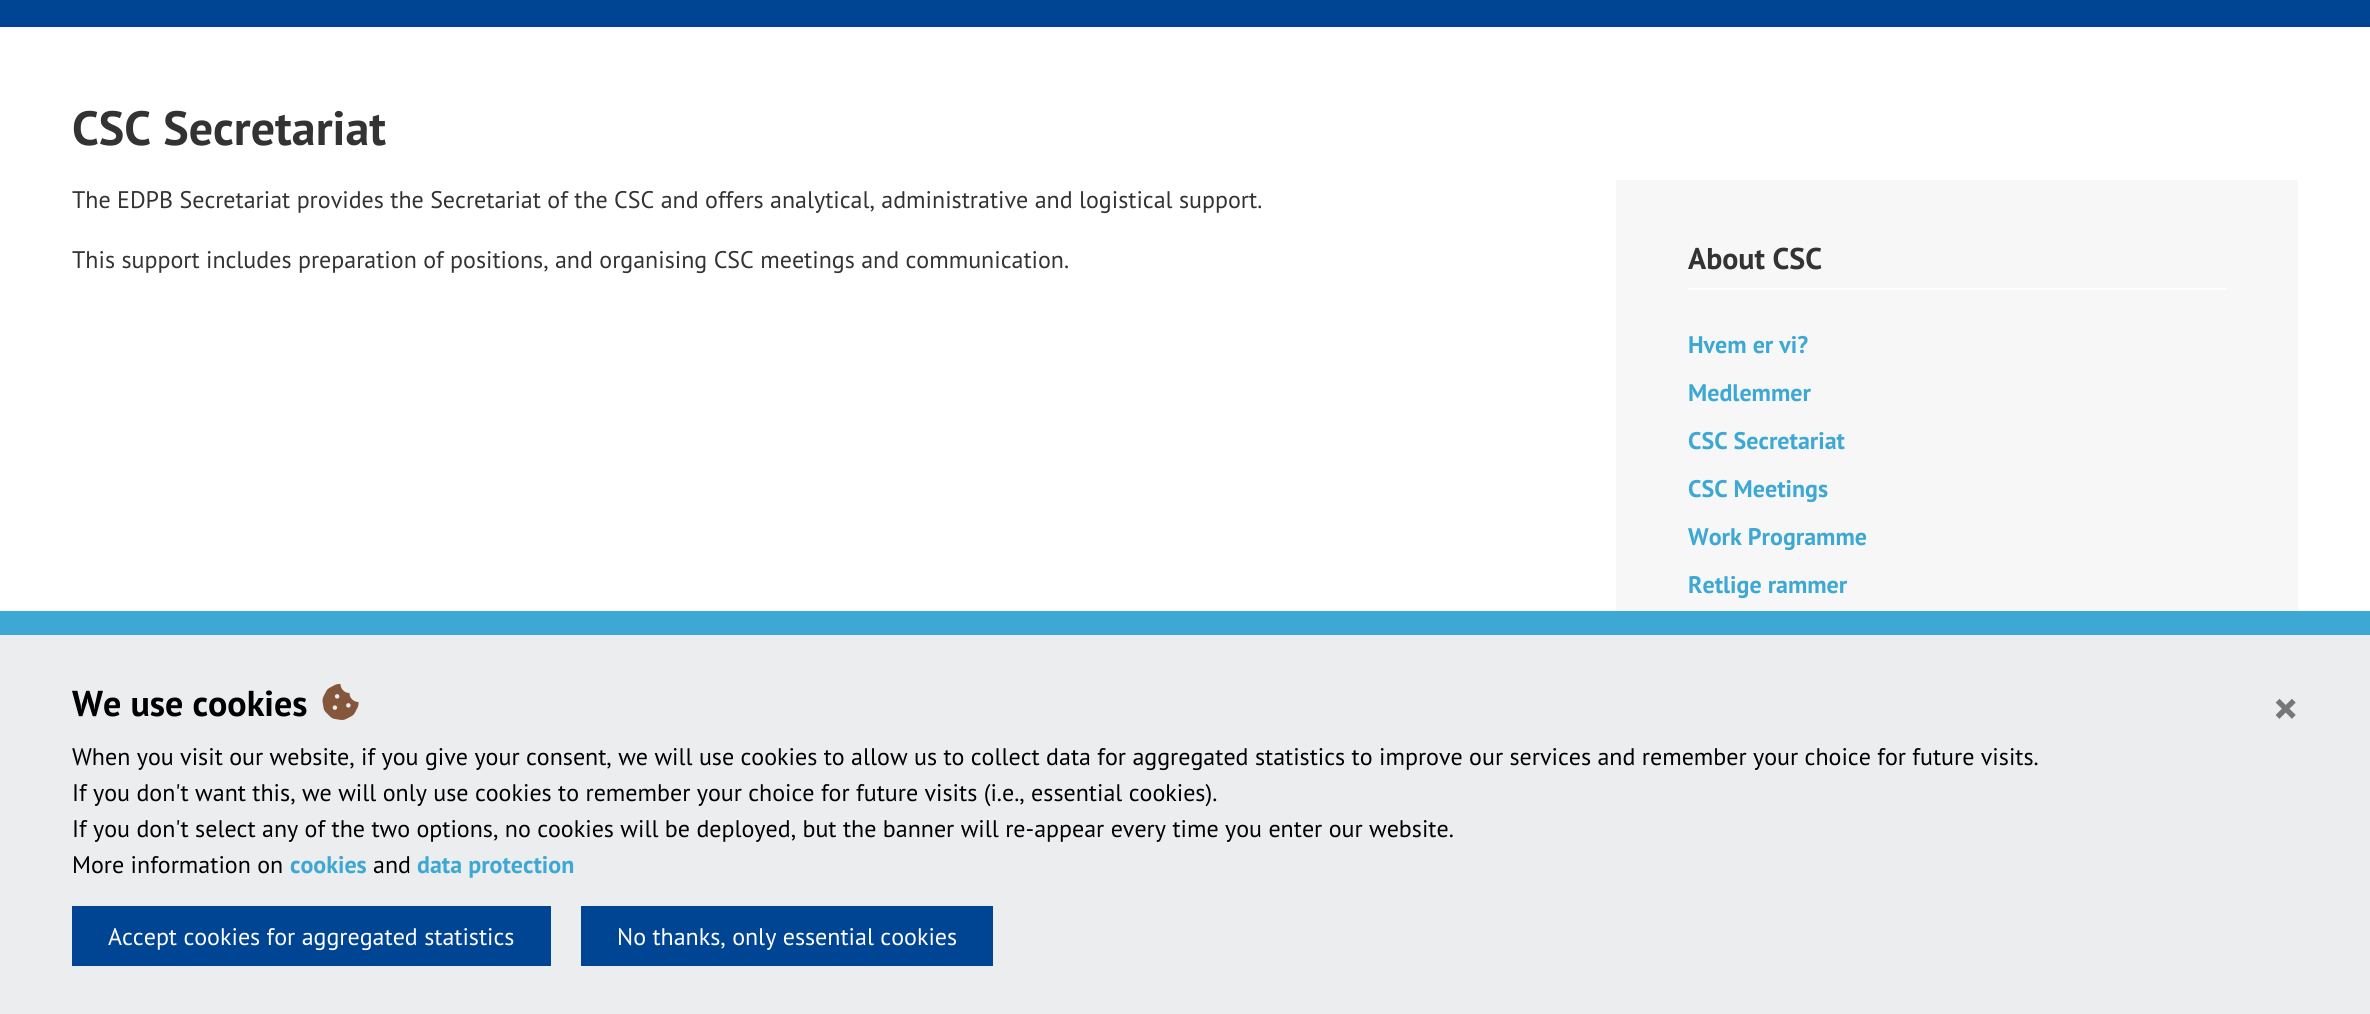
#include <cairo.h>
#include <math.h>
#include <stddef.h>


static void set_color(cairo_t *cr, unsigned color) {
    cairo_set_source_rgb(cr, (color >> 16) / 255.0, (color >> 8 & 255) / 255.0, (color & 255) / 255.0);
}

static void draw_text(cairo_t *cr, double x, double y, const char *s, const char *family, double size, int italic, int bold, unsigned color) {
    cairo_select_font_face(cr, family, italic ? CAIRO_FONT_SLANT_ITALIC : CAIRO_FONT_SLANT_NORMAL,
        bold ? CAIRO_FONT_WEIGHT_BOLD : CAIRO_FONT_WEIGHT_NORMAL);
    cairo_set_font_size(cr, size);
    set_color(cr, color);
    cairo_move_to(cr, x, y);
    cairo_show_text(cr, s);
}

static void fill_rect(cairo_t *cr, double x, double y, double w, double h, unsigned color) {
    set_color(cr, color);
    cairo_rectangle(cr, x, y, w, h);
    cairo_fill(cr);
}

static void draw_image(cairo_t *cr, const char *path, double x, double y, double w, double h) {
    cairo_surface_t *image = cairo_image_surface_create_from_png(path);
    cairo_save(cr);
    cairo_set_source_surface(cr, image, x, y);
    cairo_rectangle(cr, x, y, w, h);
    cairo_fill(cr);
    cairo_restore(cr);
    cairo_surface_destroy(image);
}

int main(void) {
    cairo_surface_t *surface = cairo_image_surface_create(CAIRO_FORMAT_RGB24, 2370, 1014);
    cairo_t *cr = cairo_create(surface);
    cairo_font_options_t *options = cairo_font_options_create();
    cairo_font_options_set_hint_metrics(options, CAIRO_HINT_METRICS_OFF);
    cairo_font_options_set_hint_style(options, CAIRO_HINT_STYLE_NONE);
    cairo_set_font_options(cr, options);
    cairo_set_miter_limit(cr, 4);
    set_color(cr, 0xFFFFFF);
    cairo_paint(cr);
    fill_rect(cr, 0, 0, 2370, 27, 0x004494);
    draw_text(cr, 72, 145, "CSC Secretariat", "PT Sans", 48, 0, 1, 0x333333);
    draw_text(cr, 72, 208, "The EDPB Secretariat provides the Secretariat of the CSC and offers analytical, administrative and logistical support.", "PT Sans", 24, 0, 0, 0x333333);
    draw_text(cr, 72, 268, "This support includes preparation of positions, and organising CSC meetings and communication.", "PT Sans", 24, 0, 0, 0x333333);
    fill_rect(cr, 1616, 180, 682, 431, 0xF7F7F7);
    fill_rect(cr, 1688, 288, 538, 2, 0xFFFFFF);
    draw_text(cr, 1688, 269, "About CSC", "PT Sans", 30, 0, 1, 0x333333);
    draw_text(cr, 1688, 353, "Hvem er vi?", "PT Sans", 24, 0, 1, 0x3CA8D3);
    draw_text(cr, 1688, 401, "Medlemmer", "PT Sans", 24, 0, 1, 0x3CA8D3);
    draw_text(cr, 1688, 449, "CSC Secretariat", "PT Sans", 24, 0, 1, 0x3CA8D3);
    draw_text(cr, 1688, 497, "CSC Meetings", "PT Sans", 24, 0, 1, 0x3CA8D3);
    draw_text(cr, 1688, 545, "Work Programme", "PT Sans", 24, 0, 1, 0x3CA8D3);
    draw_text(cr, 1688, 593, "Retlige rammer", "PT Sans", 24, 0, 1, 0x3CA8D3);
    fill_rect(cr, 0, 635, 2370, 379, 0xECEDEE);
    fill_rect(cr, 0, 611, 2370, 24, 0x3CA8D3);
    draw_text(cr, 72, 716, "We use cookies", "PT Sans", 36, 0, 1, 0x000000);
    draw_image(cr, "assets/img1.png", 322, 684, 37, 36);
    draw_text(cr, 2273, 725, "×", "PT Sans", 48, 0, 1, 0x767777);
    draw_text(cr, 72, 765, "When you visit our website, if you give your consent, we will use cookies to allow us to collect data for aggregated statistics to improve our services and remember your choice for future visits.", "PT Sans", 24, 0, 0, 0x000000);
    draw_text(cr, 72, 801, "If you don't want this, we will only use cookies to remember your choice for future visits (i.e., essential cookies).", "PT Sans", 24, 0, 0, 0x000000);
    draw_text(cr, 72, 837, "If you don't select any of the two options, no cookies will be deployed, but the banner will re-appear every time you enter our website.", "PT Sans", 24, 0, 0, 0x000000);
    draw_text(cr, 72, 873, "More information on", "PT Sans", 24, 0, 0, 0x000000);
    draw_text(cr, 290, 873, "cookies", "PT Sans", 24, 0, 1, 0x3CA8D3);
    draw_text(cr, 373, 873, "and", "PT Sans", 24, 0, 0, 0x000000);
    draw_text(cr, 417, 873, "data protection", "PT Sans", 24, 0, 1, 0x3CA8D3);
    fill_rect(cr, 72, 906, 479, 60, 0x004494);
    draw_text(cr, 108, 945, "Accept cookies for aggregated statistics", "PT Sans", 24, 0, 0, 0xFFFFFF);
    fill_rect(cr, 581, 906, 412, 60, 0x004494);
    draw_text(cr, 617, 945, "No thanks, only essential cookies", "PT Sans", 24, 0, 0, 0xFFFFFF);
    cairo_surface_write_to_png(surface, "output.png");
    cairo_font_options_destroy(options);
    cairo_destroy(cr);
    cairo_surface_destroy(surface);
    return 0;
}
